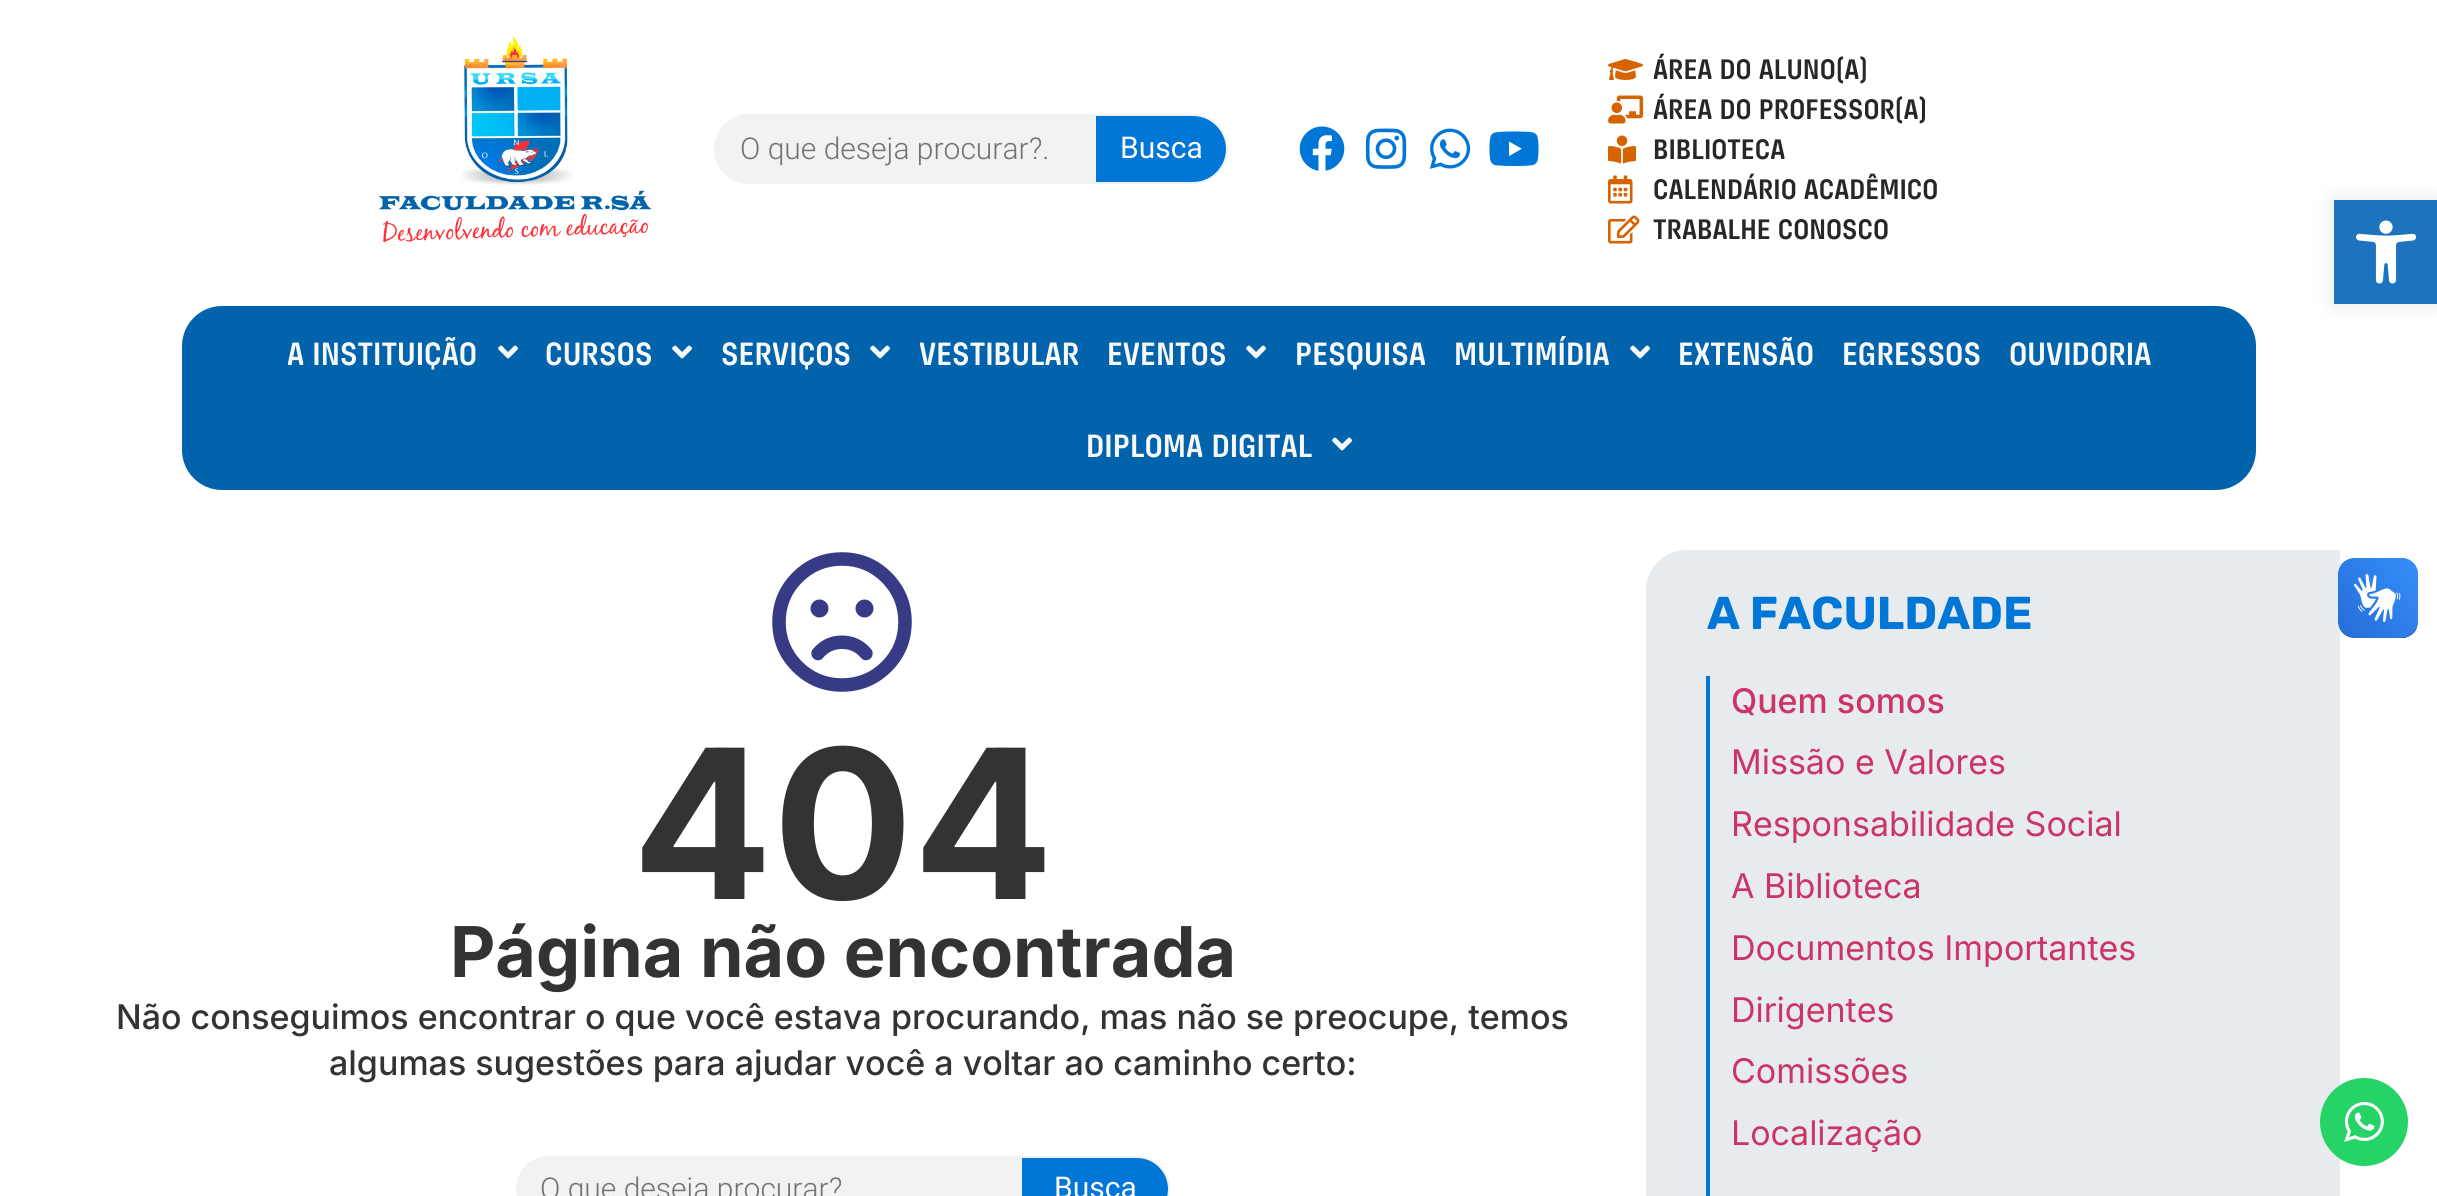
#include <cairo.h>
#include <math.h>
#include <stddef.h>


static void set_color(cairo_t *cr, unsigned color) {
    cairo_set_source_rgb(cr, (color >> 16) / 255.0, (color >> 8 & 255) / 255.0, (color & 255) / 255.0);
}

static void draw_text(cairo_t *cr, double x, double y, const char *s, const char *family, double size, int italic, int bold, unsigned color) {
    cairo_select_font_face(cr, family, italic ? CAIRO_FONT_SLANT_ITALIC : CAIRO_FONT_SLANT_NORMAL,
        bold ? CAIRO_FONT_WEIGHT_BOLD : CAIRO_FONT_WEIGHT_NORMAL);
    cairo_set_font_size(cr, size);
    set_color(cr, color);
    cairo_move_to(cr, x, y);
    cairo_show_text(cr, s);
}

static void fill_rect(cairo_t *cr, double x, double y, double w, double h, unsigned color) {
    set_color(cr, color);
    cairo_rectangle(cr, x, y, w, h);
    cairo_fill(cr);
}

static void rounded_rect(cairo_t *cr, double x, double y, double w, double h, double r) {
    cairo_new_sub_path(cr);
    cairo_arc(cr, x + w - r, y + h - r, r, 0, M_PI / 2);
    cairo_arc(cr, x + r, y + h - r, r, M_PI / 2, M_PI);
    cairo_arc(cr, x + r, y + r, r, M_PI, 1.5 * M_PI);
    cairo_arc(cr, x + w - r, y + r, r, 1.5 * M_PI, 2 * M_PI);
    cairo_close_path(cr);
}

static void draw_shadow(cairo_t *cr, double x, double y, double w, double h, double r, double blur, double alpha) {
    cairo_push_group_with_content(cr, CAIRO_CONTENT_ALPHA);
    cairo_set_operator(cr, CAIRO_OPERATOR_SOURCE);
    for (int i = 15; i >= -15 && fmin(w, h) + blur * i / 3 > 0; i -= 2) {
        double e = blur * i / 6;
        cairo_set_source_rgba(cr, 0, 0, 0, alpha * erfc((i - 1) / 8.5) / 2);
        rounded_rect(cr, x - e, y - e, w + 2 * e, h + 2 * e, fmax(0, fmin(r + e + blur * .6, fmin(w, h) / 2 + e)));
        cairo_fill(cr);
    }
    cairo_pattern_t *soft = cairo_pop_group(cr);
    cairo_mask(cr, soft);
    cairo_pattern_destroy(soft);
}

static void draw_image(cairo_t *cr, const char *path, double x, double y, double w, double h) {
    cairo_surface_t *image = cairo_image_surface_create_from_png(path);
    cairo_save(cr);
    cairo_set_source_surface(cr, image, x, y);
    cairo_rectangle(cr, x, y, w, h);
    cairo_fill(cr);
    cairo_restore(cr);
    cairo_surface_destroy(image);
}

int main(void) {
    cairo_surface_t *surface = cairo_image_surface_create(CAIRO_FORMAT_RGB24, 2437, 1196);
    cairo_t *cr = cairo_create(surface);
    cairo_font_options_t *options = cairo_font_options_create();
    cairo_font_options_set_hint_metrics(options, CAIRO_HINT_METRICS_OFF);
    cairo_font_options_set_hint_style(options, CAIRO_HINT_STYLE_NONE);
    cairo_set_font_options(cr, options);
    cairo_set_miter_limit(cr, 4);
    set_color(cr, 0xFFFFFF);
    cairo_paint(cr);
    draw_image(cr, "assets/img1.png", 378, 35, 274, 208);
    set_color(cr, 0xF1F2F3);
    rounded_rect(cr, 714, 114, 514, 70, 35);
    cairo_fill(cr);
    draw_text(cr, 740, 159, "O que deseja procurar?.", "Roboto Light", 30, 0, 0, 0x717273);
    set_color(cr, 0x0077D6);
    cairo_new_path(cr);
    cairo_move_to(cr, 1096, 116);
    cairo_line_to(cr, 1193, 116);
    cairo_curve_to(cr, 1211, 116, 1226, 131, 1226, 149);
    cairo_curve_to(cr, 1226, 167, 1211, 182, 1193, 182);
    cairo_line_to(cr, 1096, 182);
    cairo_close_path(cr);
    cairo_fill(cr);
    draw_text(cr, 1120, 158, "Busca", "Roboto", 30, 0, 0, 0xFFFBFB);
    draw_image(cr, "assets/img2.png", 1299, 126, 46, 45);
    draw_image(cr, "assets/img3.png", 1365, 128, 42, 41);
    draw_image(cr, "assets/img4.png", 1429, 128, 42, 41);
    draw_image(cr, "assets/img5.png", 1489, 131, 50, 35);
    draw_image(cr, "assets/img6.png", 1608, 59, 35, 21);
    draw_text(cr, 1653, 79, "ÁREA DO ALUNO(A)", "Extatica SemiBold", 28, 0, 0, 0x292626);
    draw_image(cr, "assets/img7.png", 1608, 95, 36, 29);
    draw_text(cr, 1653, 119, "ÁREA DO PROFESSOR(A)", "Extatica SemiBold", 28, 0, 0, 0x292626);
    draw_image(cr, "assets/img8.png", 1608, 135, 28, 29);
    draw_text(cr, 1653, 159, "BIBLIOTECA", "Extatica SemiBold", 28, 0, 0, 0x292626);
    draw_image(cr, "assets/img9.png", 1608, 175, 25, 29);
    draw_text(cr, 1653, 199, "CALENDÁRIO ACADÊMICO", "Extatica SemiBold", 28, 0, 0, 0x292626);
    draw_image(cr, "assets/img10.png", 1608, 215, 32, 29);
    draw_text(cr, 1653, 239, "TRABALHE CONOSCO", "Extatica SemiBold", 28, 0, 0, 0x292626);
    set_color(cr, 0x0163AB);
    rounded_rect(cr, 182, 306, 2074, 184, 40);
    cairo_fill(cr);
    draw_text(cr, 287, 365, "A INSTITUIÇÃO", "Extatica SemiBold", 32, 0, 0, 0xF8F8F8);
    draw_image(cr, "assets/img11.png", 498, 345, 20, 14);
    draw_text(cr, 545, 365, "CURSOS", "Extatica SemiBold", 32, 0, 0, 0xF8F8F8);
    draw_image(cr, "assets/img11.png", 672, 345, 20, 14);
    draw_text(cr, 721, 365, "SERVIÇOS", "Extatica SemiBold", 32, 0, 0, 0xF8F8F8);
    draw_image(cr, "assets/img11.png", 870, 345, 20, 14);
    draw_text(cr, 919, 365, "VESTIBULAR", "Extatica SemiBold", 32, 0, 0, 0xF8F8F8);
    draw_text(cr, 1107, 365, "EVENTOS", "Extatica SemiBold", 32, 0, 0, 0xF8F8F8);
    draw_image(cr, "assets/img11.png", 1246, 345, 20, 14);
    draw_text(cr, 1295, 365, "PESQUISA", "Extatica SemiBold", 32, 0, 0, 0xF8F8F8);
    draw_text(cr, 1454, 365, "MULTIMÍDIA", "Extatica SemiBold", 32, 0, 0, 0xF8F8F8);
    draw_image(cr, "assets/img11.png", 1630, 345, 20, 14);
    draw_text(cr, 1678, 365, "EXTENSÃO", "Extatica SemiBold", 32, 0, 0, 0xF8F8F8);
    draw_text(cr, 1842, 365, "EGRESSOS", "Extatica SemiBold", 32, 0, 0, 0xF8F8F8);
    draw_text(cr, 2009, 365, "OUVIDORIA", "Extatica SemiBold", 32, 0, 0, 0xF8F8F8);
    draw_text(cr, 1086, 457, "DIPLOMA DIGITAL", "Extatica SemiBold", 32, 0, 0, 0xF8F8F8);
    draw_image(cr, "assets/img11.png", 1332, 437, 20, 14);
    set_color(cr, 0x000000);
    draw_shadow(cr, 2334, 200, 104, 104, 0, 10, 0.1);
    fill_rect(cr, 2334, 200, 103, 104, 0x1E73BE);
    draw_image(cr, "assets/img12.png", 2356, 220, 61, 64);
    draw_image(cr, "assets/img13.png", 772, 552, 140, 140);
    draw_text(cr, 632, 899, "404", "Inter", 208, 0, 1, 0x333333);
    draw_text(cr, 450, 977, "Página não encontrada", "Inter", 70, 0, 1, 0x333333);
    draw_text(cr, 116, 1029, "Não conseguimos encontrar o que você estava procurando, mas não se preocupe, temos", "Inter Medium", 34, 0, 0, 0x333333);
    draw_text(cr, 329, 1075, "algumas sugestões para ajudar você a voltar ao caminho certo:", "Inter Medium", 34, 0, 0, 0x333333);
    set_color(cr, 0xF1F2F3);
    rounded_rect(cr, 516, 1156, 654, 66, 33);
    cairo_fill(cr);
    draw_text(cr, 540, 1199, "O que deseja procurar?", "Roboto Light", 30, 0, 0, 0x717273);
    set_color(cr, 0x0077D6);
    cairo_new_path(cr);
    cairo_move_to(cr, 1022, 1158);
    cairo_line_to(cr, 1137, 1158);
    cairo_curve_to(cr, 1154, 1158, 1168, 1172, 1168, 1189);
    cairo_curve_to(cr, 1168, 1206, 1154, 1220, 1137, 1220);
    cairo_line_to(cr, 1022, 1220);
    cairo_close_path(cr);
    cairo_fill(cr);
    draw_text(cr, 1054, 1198, "Busca", "Roboto", 30, 0, 0, 0xFFFBFB);
    set_color(cr, 0xE7EBEE);
    cairo_new_path(cr);
    cairo_move_to(cr, 1686, 550);
    cairo_line_to(cr, 2340, 550);
    cairo_line_to(cr, 2340, 1196);
    cairo_curve_to(cr, 2340, 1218, 2322, 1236, 2300, 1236);
    cairo_line_to(cr, 1646, 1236);
    cairo_line_to(cr, 1646, 590);
    cairo_curve_to(cr, 1646, 568, 1664, 550, 1686, 550);
    cairo_close_path(cr);
    cairo_fill(cr);
    draw_text(cr, 1707, 629, "A FACULDADE", "Rubik", 46, 0, 1, 0x0077D6);
    fill_rect(cr, 1706, 676, 4, 520, 0x0077D6);
    draw_text(cr, 1731, 713, "Quem somos", "Inter Medium", 34, 0, 0, 0xCC3366);
    draw_text(cr, 1731, 774, "Missão e Valores", "Inter", 34, 0, 0, 0xCC3366);
    draw_text(cr, 1731, 836, "Responsabilidade Social", "Inter", 34, 0, 0, 0xCC3366);
    draw_text(cr, 1731, 898, "A Biblioteca", "Inter", 34, 0, 0, 0xCC3366);
    draw_text(cr, 1731, 960, "Documentos Importantes", "Inter", 34, 0, 0, 0xCC3366);
    draw_text(cr, 1731, 1022, "Dirigentes", "Inter", 34, 0, 0, 0xCC3366);
    draw_text(cr, 1731, 1083, "Comissões", "Inter", 34, 0, 0, 0xCC3366);
    draw_text(cr, 1731, 1145, "Localização", "Inter", 34, 0, 0, 0xCC3366);
    draw_image(cr, "assets/img14.png", 2338, 558, 80, 80);
    draw_image(cr, "assets/img15.png", 2338, 558, 80, 80);
    set_color(cr, 0x25D366);
    cairo_arc(cr, 2364, 1122, 44, 0, 2 * M_PI);
    cairo_fill(cr);
    draw_image(cr, "assets/img16.png", 2344, 1102, 40, 40);
    cairo_surface_write_to_png(surface, "output.png");
    cairo_font_options_destroy(options);
    cairo_destroy(cr);
    cairo_surface_destroy(surface);
    return 0;
}
